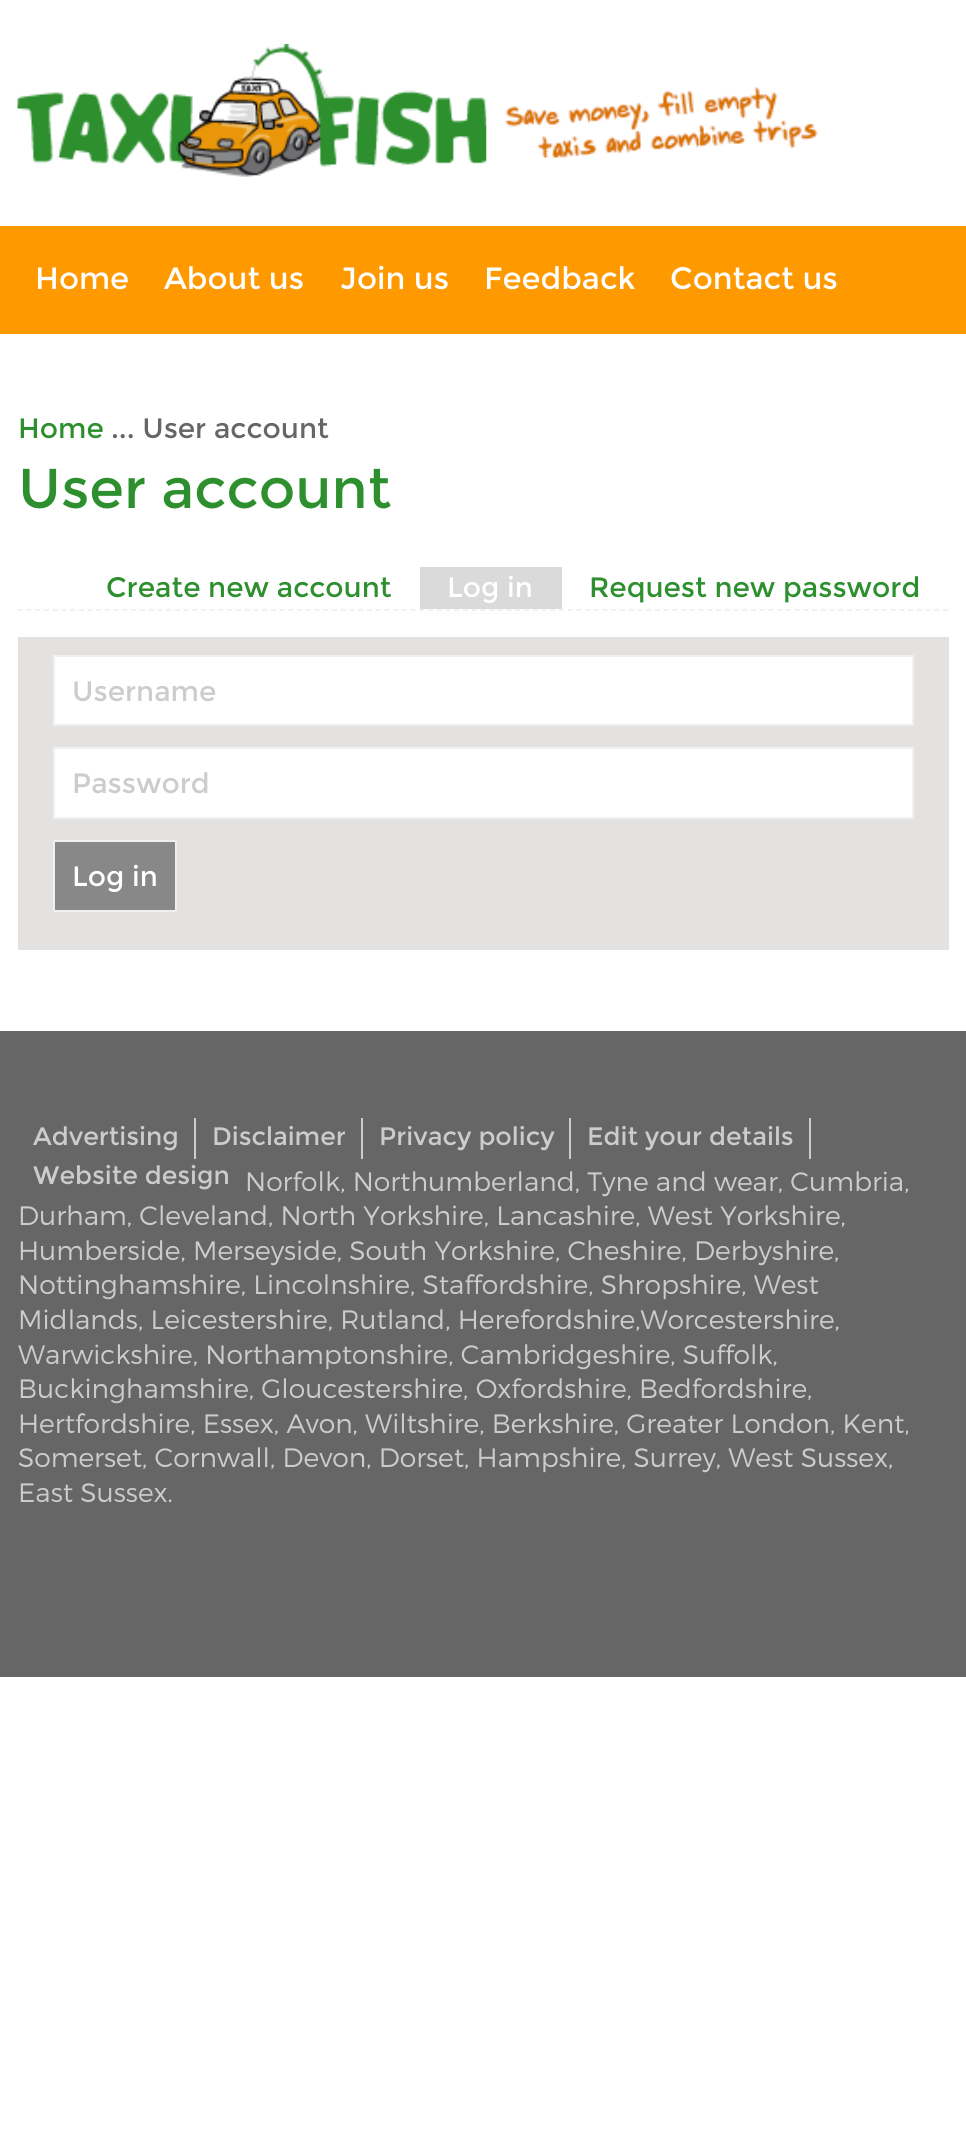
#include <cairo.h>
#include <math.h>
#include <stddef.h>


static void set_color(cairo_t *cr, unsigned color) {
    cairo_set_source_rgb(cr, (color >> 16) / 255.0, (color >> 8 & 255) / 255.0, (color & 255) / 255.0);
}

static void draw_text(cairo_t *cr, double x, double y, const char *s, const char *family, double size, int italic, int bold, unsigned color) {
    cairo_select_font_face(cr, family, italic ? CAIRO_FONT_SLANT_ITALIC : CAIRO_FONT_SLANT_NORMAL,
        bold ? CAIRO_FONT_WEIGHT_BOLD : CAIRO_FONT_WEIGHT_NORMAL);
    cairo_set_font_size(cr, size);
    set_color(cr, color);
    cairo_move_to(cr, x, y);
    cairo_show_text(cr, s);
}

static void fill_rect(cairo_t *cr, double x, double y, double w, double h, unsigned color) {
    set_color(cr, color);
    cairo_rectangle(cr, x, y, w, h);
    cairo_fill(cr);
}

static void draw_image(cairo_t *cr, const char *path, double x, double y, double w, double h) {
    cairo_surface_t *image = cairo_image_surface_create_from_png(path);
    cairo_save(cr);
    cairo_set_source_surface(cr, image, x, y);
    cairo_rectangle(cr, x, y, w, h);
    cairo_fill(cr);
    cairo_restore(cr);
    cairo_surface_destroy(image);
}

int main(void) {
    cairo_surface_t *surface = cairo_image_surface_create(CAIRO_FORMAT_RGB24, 966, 2143);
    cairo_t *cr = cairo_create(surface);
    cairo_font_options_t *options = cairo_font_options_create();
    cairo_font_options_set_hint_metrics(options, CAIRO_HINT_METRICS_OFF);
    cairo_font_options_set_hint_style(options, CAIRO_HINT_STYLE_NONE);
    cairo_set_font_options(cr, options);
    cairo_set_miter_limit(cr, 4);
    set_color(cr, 0xFFFFFF);
    cairo_paint(cr);
    draw_image(cr, "assets/img1.png", 17, 43, 470, 134);
    draw_image(cr, "assets/img2.png", 486, 87, 332, 76);
    fill_rect(cr, 0, 226, 966, 108, 0xFF9900);
    draw_text(cr, 35, 289, "Home", "Montserrat", 30.75, 0, 0, 0xFFFFFF);
    draw_text(cr, 164, 289, "About us", "Montserrat", 30.75, 0, 0, 0xFFFFFF);
    draw_text(cr, 340, 289, "Join us", "Montserrat", 30.75, 0, 0, 0xFFFFFF);
    draw_text(cr, 484, 289, "Feedback", "Montserrat", 30.75, 0, 0, 0xFFFFFF);
    draw_text(cr, 670, 289, "Contact us", "Montserrat", 30.75, 0, 0, 0xFFFFFF);
    draw_text(cr, 18, 438, "Home", "Montserrat", 28, 0, 0, 0x2D8F2E);
    draw_text(cr, 111, 438, "... User account", "Montserrat", 28, 0, 0, 0x666666);
    draw_text(cr, 18, 508, "User account", "Montserrat", 56, 0, 0, 0x2D8F2E);
    cairo_new_path(cr);
    cairo_move_to(cr, 17.5, 610);
    cairo_line_to(cr, 948.5, 610);
    set_color(cr, 0xF0F0F0);
    cairo_set_line_width(cr, 1.8);
    cairo_set_dash(cr, (double[]){5.25, 3.48}, 2, 0);
    cairo_stroke(cr);
    draw_text(cr, 106, 597, "Create new account", "Montserrat", 28, 0, 0, 0x2D8F2E);
    fill_rect(cr, 420, 567, 142, 42, 0xDADADA);
    draw_text(cr, 447, 597, "Log in", "Montserrat", 28, 0, 0, 0xFFFFFF);
    draw_text(cr, 589, 597, "Request new password", "Montserrat", 28, 0, 0, 0x2D8F2E);
    fill_rect(cr, 18, 637, 931, 313, 0xE3E2E0);
    set_color(cr, 0xFFFFFF);
    cairo_rectangle(cr, 54, 656, 859, 69);
    cairo_fill_preserve(cr);
    set_color(cr, 0xF0F0F0);
    cairo_set_line_width(cr, 2);
    cairo_set_dash(cr, NULL, 0, 0);
    cairo_stroke(cr);
    draw_text(cr, 72, 701, "Username", "Montserrat", 28, 0, 0, 0xCCCCCC);
    set_color(cr, 0xFFFFFF);
    cairo_rectangle(cr, 54, 748, 859, 70);
    cairo_fill_preserve(cr);
    set_color(cr, 0xF0F0F0);
    cairo_stroke(cr);
    draw_text(cr, 72, 793, "Password", "Montserrat", 28, 0, 0, 0xCCCCCC);
    set_color(cr, 0x888888);
    cairo_rectangle(cr, 54, 841, 122, 70);
    cairo_fill_preserve(cr);
    set_color(cr, 0xF0F0F0);
    cairo_stroke(cr);
    draw_text(cr, 72, 886, "Log in", "Montserrat", 28, 0, 0, 0xFFFFFF);
    fill_rect(cr, 0, 1031, 966, 646, 0x666666);
    fill_rect(cr, 194, 1118, 2, 41, 0xCCCCCC);
    draw_text(cr, 33, 1145, "Advertising", "Montserrat", 25.25, 0, 0, 0xCCCCCC);
    fill_rect(cr, 361, 1118, 2, 41, 0xCCCCCC);
    draw_text(cr, 212, 1145, "Disclaimer", "Montserrat", 25.25, 0, 0, 0xCCCCCC);
    fill_rect(cr, 569, 1118, 2, 41, 0xCCCCCC);
    draw_text(cr, 379, 1145, "Privacy policy", "Montserrat", 25.25, 0, 0, 0xCCCCCC);
    fill_rect(cr, 809, 1118, 2, 41, 0xCCCCCC);
    draw_text(cr, 587, 1145, "Edit your details", "Montserrat", 25.25, 0, 0, 0xCCCCCC);
    draw_text(cr, 33, 1184, "Website design", "Montserrat", 25.25, 0, 0, 0xCCCCCC);
    draw_text(cr, 245, 1191, "Norfolk, Northumberland, Tyne and wear, Cumbria,", "Montserrat Light", 26.6, 0, 0, 0xCCCCCC);
    draw_text(cr, 18, 1225, "Durham, Cleveland, North Yorkshire, Lancashire, West Yorkshire,", "Montserrat Light", 26.6, 0, 0, 0xCCCCCC);
    draw_text(cr, 18, 1260, "Humberside, Merseyside, South Yorkshire, Cheshire, Derbyshire,", "Montserrat Light", 26.6, 0, 0, 0xCCCCCC);
    draw_text(cr, 18, 1294, "Nottinghamshire, Lincolnshire, Staffordshire, Shropshire, West", "Montserrat Light", 26.6, 0, 0, 0xCCCCCC);
    draw_text(cr, 18, 1329, "Midlands, Leicestershire, Rutland, Herefordshire,Worcestershire,", "Montserrat Light", 26.6, 0, 0, 0xCCCCCC);
    draw_text(cr, 18, 1364, "Warwickshire, Northamptonshire, Cambridgeshire, Suffolk,", "Montserrat Light", 26.6, 0, 0, 0xCCCCCC);
    draw_text(cr, 18, 1398, "Buckinghamshire, Gloucestershire, Oxfordshire, Bedfordshire,", "Montserrat Light", 26.6, 0, 0, 0xCCCCCC);
    draw_text(cr, 18, 1433, "Hertfordshire, Essex, Avon, Wiltshire, Berkshire, Greater London, Kent,", "Montserrat Light", 26.6, 0, 0, 0xCCCCCC);
    draw_text(cr, 18, 1467, "Somerset, Cornwall, Devon, Dorset, Hampshire, Surrey, West Sussex,", "Montserrat Light", 26.6, 0, 0, 0xCCCCCC);
    draw_text(cr, 18, 1502, "East Sussex.", "Montserrat Light", 26.6, 0, 0, 0xCCCCCC);
    cairo_surface_write_to_png(surface, "output.png");
    cairo_font_options_destroy(options);
    cairo_destroy(cr);
    cairo_surface_destroy(surface);
    return 0;
}
